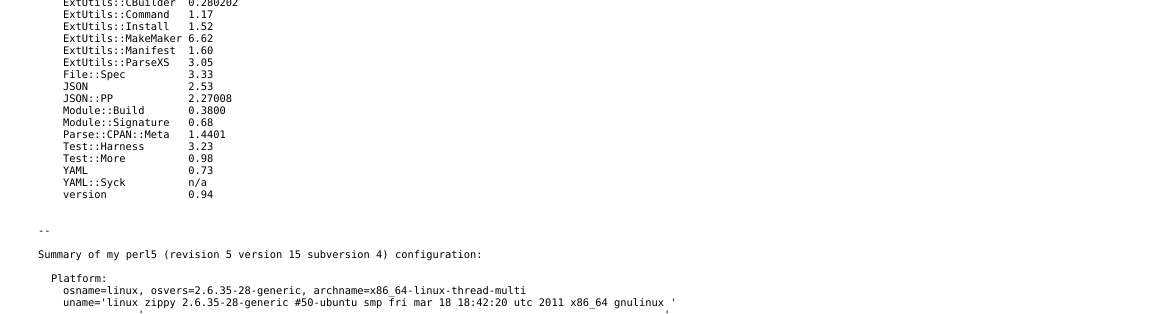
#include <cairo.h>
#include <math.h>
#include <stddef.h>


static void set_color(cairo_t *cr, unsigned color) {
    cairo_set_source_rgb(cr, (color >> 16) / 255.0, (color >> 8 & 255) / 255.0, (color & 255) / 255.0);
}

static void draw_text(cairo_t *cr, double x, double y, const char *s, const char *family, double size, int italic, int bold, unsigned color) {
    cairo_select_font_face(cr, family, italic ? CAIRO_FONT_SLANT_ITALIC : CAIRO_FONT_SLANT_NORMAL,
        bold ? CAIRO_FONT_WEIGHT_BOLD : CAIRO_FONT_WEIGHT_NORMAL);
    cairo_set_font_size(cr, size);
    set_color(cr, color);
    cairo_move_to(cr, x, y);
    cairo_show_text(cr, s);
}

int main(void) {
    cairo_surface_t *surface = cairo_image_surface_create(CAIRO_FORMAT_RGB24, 1163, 314);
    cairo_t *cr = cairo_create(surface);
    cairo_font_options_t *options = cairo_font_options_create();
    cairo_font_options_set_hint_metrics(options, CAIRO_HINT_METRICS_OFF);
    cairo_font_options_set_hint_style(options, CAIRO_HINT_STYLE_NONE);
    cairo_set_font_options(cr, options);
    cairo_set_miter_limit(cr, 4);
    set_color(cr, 0xFFFFFF);
    cairo_paint(cr);
    draw_text(cr, 63, 6, "ExtUtils::CBuilder  0.280202", "DejaVu Sans Mono", 10.4, 0, 0, 0x000000);
    draw_text(cr, 63, 18, "ExtUtils::Command   1.17", "DejaVu Sans Mono", 10.4, 0, 0, 0x000000);
    draw_text(cr, 63, 30, "ExtUtils::Install   1.52", "DejaVu Sans Mono", 10.4, 0, 0, 0x000000);
    draw_text(cr, 63, 42, "ExtUtils::MakeMaker 6.62", "DejaVu Sans Mono", 10.4, 0, 0, 0x000000);
    draw_text(cr, 63, 54, "ExtUtils::Manifest  1.60", "DejaVu Sans Mono", 10.4, 0, 0, 0x000000);
    draw_text(cr, 63, 66, "ExtUtils::ParseXS   3.05", "DejaVu Sans Mono", 10.4, 0, 0, 0x000000);
    draw_text(cr, 63, 78, "File::Spec          3.33", "DejaVu Sans Mono", 10.4, 0, 0, 0x000000);
    draw_text(cr, 63, 90, "JSON                2.53", "DejaVu Sans Mono", 10.4, 0, 0, 0x000000);
    draw_text(cr, 63, 102, "JSON::PP            2.27008", "DejaVu Sans Mono", 10.4, 0, 0, 0x000000);
    draw_text(cr, 63, 114, "Module::Build       0.3800", "DejaVu Sans Mono", 10.4, 0, 0, 0x000000);
    draw_text(cr, 63, 126, "Module::Signature   0.68", "DejaVu Sans Mono", 10.4, 0, 0, 0x000000);
    draw_text(cr, 63, 138, "Parse::CPAN::Meta   1.4401", "DejaVu Sans Mono", 10.4, 0, 0, 0x000000);
    draw_text(cr, 63, 150, "Test::Harness       3.23", "DejaVu Sans Mono", 10.4, 0, 0, 0x000000);
    draw_text(cr, 63, 162, "Test::More          0.98", "DejaVu Sans Mono", 10.4, 0, 0, 0x000000);
    draw_text(cr, 63, 174, "YAML                0.73", "DejaVu Sans Mono", 10.4, 0, 0, 0x000000);
    draw_text(cr, 63, 186, "YAML::Syck          n/a", "DejaVu Sans Mono", 10.4, 0, 0, 0x000000);
    draw_text(cr, 63, 198, "version             0.94", "DejaVu Sans Mono", 10.4, 0, 0, 0x000000);
    draw_text(cr, 38, 234, "--", "DejaVu Sans Mono", 10.4, 0, 0, 0x000000);
    draw_text(cr, 38, 258, "Summary of my perl5 (revision 5 version 15 subversion 4) configuration:", "DejaVu Sans Mono", 10.4, 0, 0, 0x000000);
    draw_text(cr, 51, 282, "Platform:", "DejaVu Sans Mono", 10.4, 0, 0, 0x000000);
    draw_text(cr, 63, 294, "osname=linux, osvers=2.6.35-28-generic, archname=x86_64-linux-thread-multi", "DejaVu Sans Mono", 10.4, 0, 0, 0x000000);
    draw_text(cr, 63, 306, "uname='linux zippy 2.6.35-28-generic #50-ubuntu smp fri mar 18 18:42:20 utc 2011 x86_64 gnulinux '", "DejaVu Sans Mono", 10.4, 0, 0, 0x000000);
    draw_text(cr, 138, 318, "'", "DejaVu Sans Mono", 10.4, 0, 0, 0x000000);
    draw_text(cr, 664, 318, "'", "DejaVu Sans Mono", 10.4, 0, 0, 0x000000);
    cairo_surface_write_to_png(surface, "output.png");
    cairo_font_options_destroy(options);
    cairo_destroy(cr);
    cairo_surface_destroy(surface);
    return 0;
}
